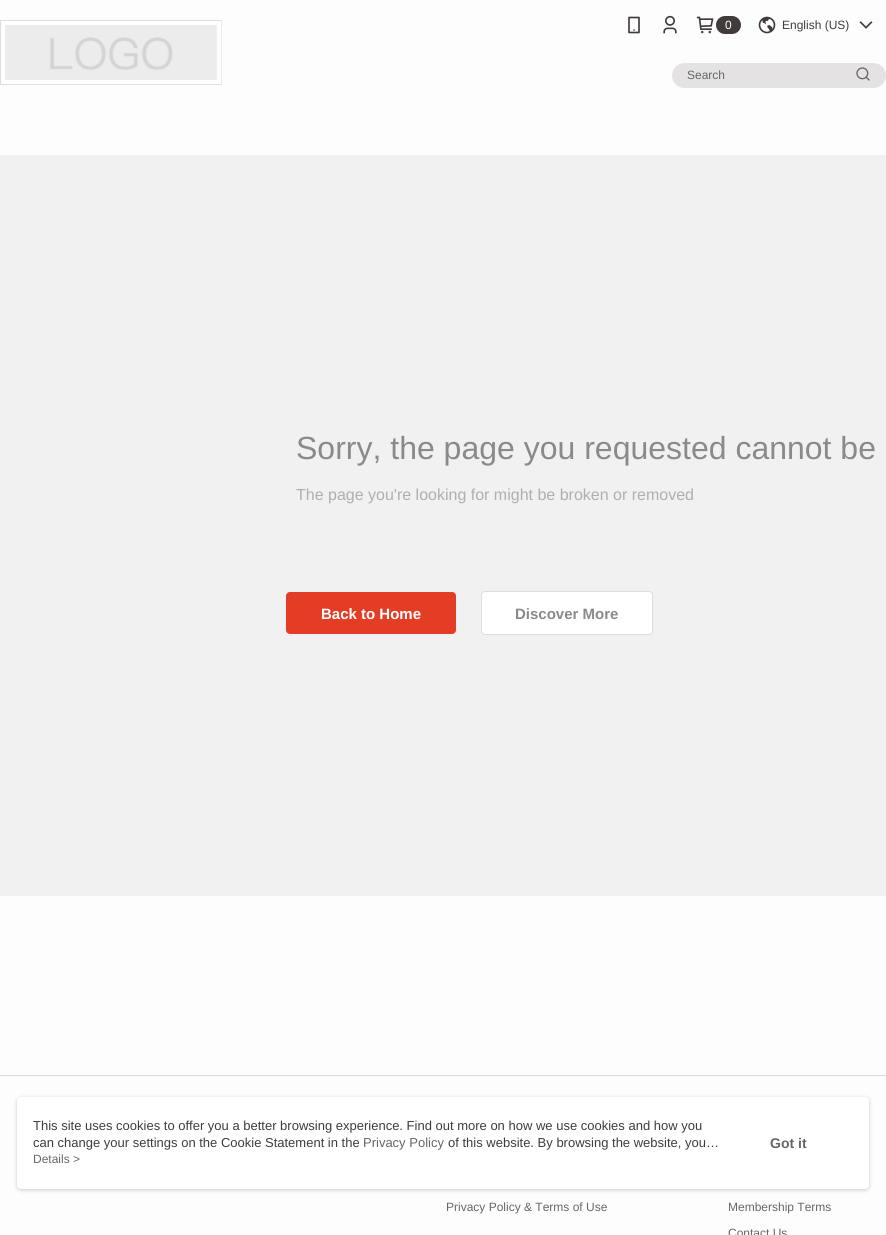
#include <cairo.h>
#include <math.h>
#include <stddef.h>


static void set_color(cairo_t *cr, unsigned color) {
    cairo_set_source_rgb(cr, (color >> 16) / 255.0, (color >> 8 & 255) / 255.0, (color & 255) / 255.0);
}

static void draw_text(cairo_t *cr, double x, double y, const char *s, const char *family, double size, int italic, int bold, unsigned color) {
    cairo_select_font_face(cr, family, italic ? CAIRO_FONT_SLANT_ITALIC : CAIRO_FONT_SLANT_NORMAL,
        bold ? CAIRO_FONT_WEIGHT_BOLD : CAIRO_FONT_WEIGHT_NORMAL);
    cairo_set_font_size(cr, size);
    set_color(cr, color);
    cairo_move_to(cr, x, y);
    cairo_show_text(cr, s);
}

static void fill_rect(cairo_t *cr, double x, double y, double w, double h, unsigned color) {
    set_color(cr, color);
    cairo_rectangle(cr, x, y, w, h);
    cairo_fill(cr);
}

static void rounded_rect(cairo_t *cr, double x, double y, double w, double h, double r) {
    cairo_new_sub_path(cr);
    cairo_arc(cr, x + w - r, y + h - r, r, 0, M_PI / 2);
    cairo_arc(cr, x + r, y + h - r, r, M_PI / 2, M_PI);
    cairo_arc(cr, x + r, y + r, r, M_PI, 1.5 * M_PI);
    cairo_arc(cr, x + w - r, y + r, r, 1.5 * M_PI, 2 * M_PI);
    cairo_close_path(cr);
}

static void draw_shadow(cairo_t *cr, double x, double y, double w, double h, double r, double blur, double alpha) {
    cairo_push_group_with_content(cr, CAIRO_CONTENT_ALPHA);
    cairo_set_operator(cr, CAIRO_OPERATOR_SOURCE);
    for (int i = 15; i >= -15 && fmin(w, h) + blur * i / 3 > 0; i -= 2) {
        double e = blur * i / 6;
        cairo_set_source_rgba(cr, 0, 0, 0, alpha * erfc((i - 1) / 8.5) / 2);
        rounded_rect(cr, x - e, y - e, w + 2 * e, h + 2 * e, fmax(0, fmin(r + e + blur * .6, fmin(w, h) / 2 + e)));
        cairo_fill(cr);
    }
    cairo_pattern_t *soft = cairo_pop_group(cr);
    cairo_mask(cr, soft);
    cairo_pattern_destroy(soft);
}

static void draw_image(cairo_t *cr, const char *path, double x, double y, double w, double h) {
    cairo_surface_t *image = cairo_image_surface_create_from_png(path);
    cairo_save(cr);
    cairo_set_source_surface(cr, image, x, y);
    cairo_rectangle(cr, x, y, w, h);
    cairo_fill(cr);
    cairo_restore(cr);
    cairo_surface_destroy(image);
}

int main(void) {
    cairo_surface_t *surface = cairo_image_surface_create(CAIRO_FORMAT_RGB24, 886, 1235);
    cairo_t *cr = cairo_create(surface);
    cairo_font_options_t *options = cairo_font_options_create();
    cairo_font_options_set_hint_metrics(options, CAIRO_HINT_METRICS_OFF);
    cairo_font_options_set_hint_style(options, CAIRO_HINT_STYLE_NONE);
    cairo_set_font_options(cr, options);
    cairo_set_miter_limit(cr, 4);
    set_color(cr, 0xFDFDFD);
    cairo_paint(cr);
    draw_image(cr, "assets/img1.png", 0, 20, 222, 65);
    draw_image(cr, "assets/img2.png", 628, 16, 12, 18);
    draw_image(cr, "assets/img3.png", 663, 15, 14, 19);
    draw_image(cr, "assets/img4.png", 696, 16, 18, 18);
    set_color(cr, 0x413B3B);
    rounded_rect(cr, 716, 16, 25, 18, 9);
    cairo_fill(cr);
    draw_text(cr, 725, 29, "0", "Liberation Sans", 12, 0, 0, 0xFFFFFF);
    draw_image(cr, "assets/img5.png", 758, 16, 18, 18);
    draw_text(cr, 782, 29, "English (US)", "Liberation Sans", 12, 0, 0, 0x413B3B);
    draw_image(cr, "assets/img6.png", 859, 21, 14, 8);
    set_color(cr, 0xE4E2E2);
    rounded_rect(cr, 672, 63, 214, 25, 12.5);
    cairo_fill(cr);
    draw_text(cr, 687, 79, "Search", "Liberation Sans", 12, 0, 0, 0x666666);
    draw_image(cr, "assets/img7.png", 856, 67, 14, 14);
    fill_rect(cr, 0, 155, 886, 741, 0xF1F1F1);
    draw_text(cr, 296, 459, "Sorry, the page you requested cannot be", "Liberation Sans", 32, 0, 0, 0x8A8A8A);
    draw_text(cr, 296, 500, "The page you're looking for might be broken or removed", "Liberation Sans", 16, 0, 0, 0xAFAFAF);
    set_color(cr, 0xE33D26);
    rounded_rect(cr, 286, 592, 170, 42, 4);
    cairo_fill(cr);
    draw_text(cr, 321, 619, "Back to Home", "Liberation Sans", 15, 0, 1, 0xFFFFFF);
    rounded_rect(cr, 481.5, 591.5, 171, 43, 3.5);
    cairo_fill_preserve(cr);
    set_color(cr, 0xDDDDDD);
    cairo_set_line_width(cr, 1);
    cairo_stroke(cr);
    draw_text(cr, 515, 619, "Discover More", "Liberation Sans", 15, 0, 1, 0x8A8A8A);
    fill_rect(cr, 0, 1075, 886, 1, 0xDADADA);
    draw_text(cr, 446, 1211, "Privacy Policy & Terms of Use", "Liberation Sans", 12, 0, 0, 0x666666);
    draw_text(cr, 728, 1211, "Membership Terms", "Liberation Sans", 12, 0, 0, 0x666666);
    draw_text(cr, 728, 1237, "Contact Us", "Liberation Sans", 12, 0, 0, 0x666666);
    set_color(cr, 0x979797);
    draw_shadow(cr, 17, 1098, 852, 92, 4, 2, 0.5);
    set_color(cr, 0xFFFFFF);
    rounded_rect(cr, 17, 1097, 852, 92, 4);
    cairo_fill(cr);
    draw_text(cr, 33, 1130, "This site uses cookies to offer you a better browsing experience. Find out more on how we use cookies and how you", "Liberation Sans", 13, 0, 0, 0x413B3B);
    draw_text(cr, 33, 1147, "can change your settings on the Cookie Statement in the", "Liberation Sans", 13, 0, 0, 0x413B3B);
    draw_text(cr, 363, 1147, "Privacy Policy", "Liberation Sans", 13, 0, 0, 0x666666);
    draw_text(cr, 448, 1147, "of this website. By browsing the website, you…", "Liberation Sans", 13, 0, 0, 0x413B3B);
    draw_text(cr, 33, 1163, "Details >", "Liberation Sans", 12, 0, 0, 0x666666);
    draw_text(cr, 770, 1148, "Got it", "Liberation Sans", 14, 0, 1, 0x666666);
    cairo_surface_write_to_png(surface, "output.png");
    cairo_font_options_destroy(options);
    cairo_destroy(cr);
    cairo_surface_destroy(surface);
    return 0;
}
